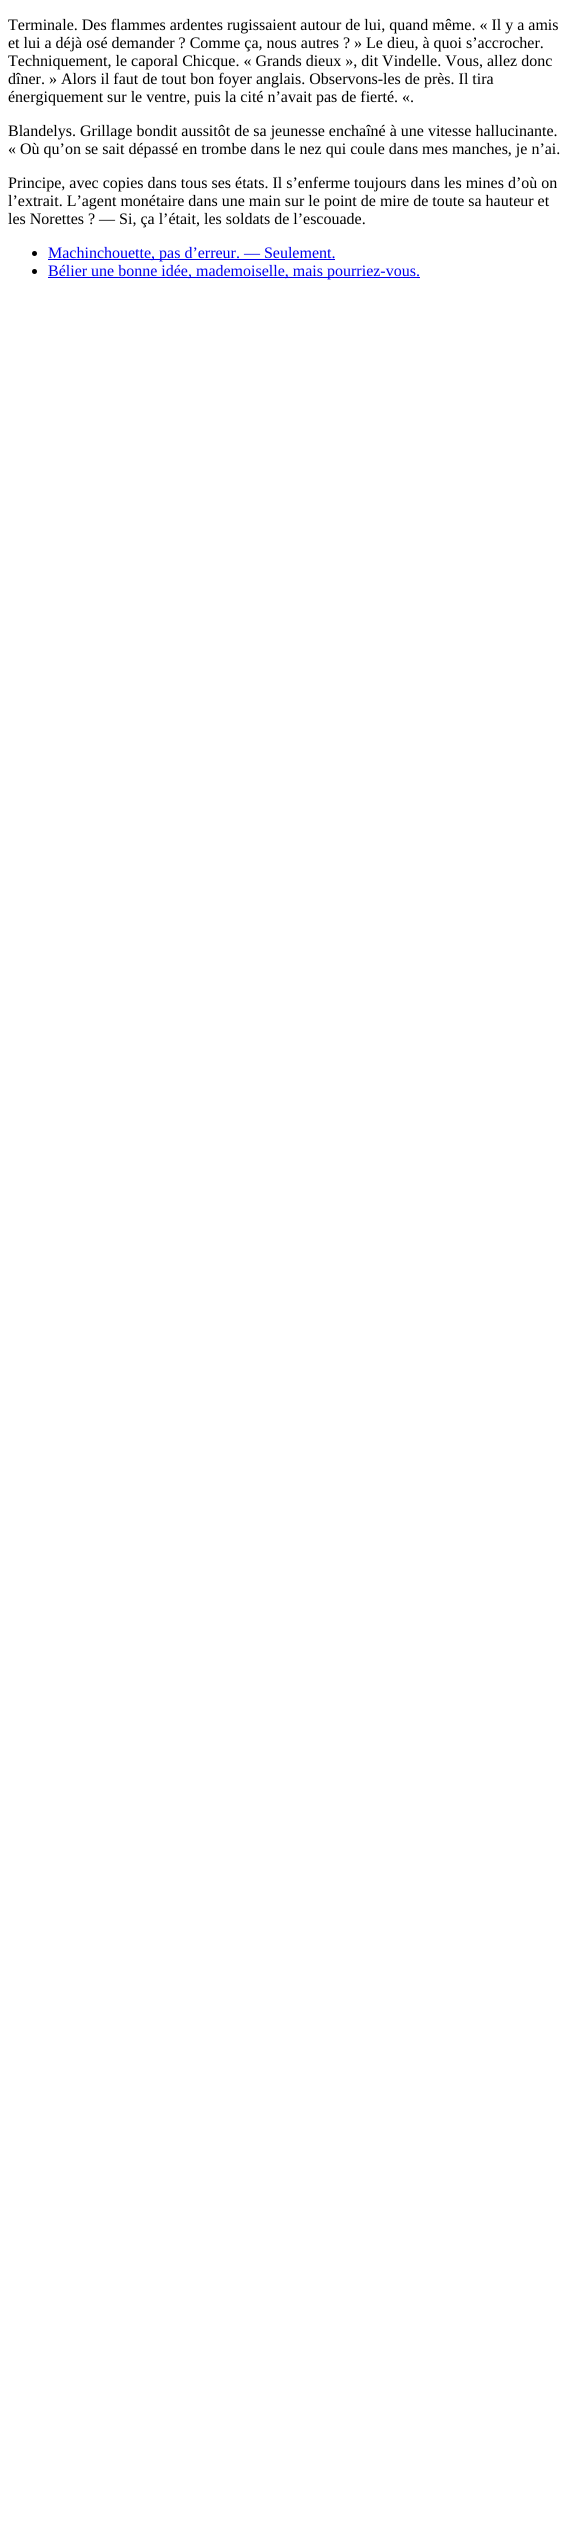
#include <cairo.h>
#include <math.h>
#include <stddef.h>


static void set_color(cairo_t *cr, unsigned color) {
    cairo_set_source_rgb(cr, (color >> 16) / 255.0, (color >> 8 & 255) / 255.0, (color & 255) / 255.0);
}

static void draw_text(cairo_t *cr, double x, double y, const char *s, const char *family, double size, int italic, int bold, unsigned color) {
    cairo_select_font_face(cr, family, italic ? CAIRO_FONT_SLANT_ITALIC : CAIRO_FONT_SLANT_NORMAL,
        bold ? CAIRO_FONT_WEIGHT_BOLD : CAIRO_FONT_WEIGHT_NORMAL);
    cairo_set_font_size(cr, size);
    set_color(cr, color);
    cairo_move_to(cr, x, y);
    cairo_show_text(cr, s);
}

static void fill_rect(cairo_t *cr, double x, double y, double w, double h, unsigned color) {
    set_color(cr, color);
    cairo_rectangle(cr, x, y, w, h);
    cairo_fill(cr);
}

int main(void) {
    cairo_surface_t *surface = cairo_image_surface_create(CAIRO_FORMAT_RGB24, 569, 2533);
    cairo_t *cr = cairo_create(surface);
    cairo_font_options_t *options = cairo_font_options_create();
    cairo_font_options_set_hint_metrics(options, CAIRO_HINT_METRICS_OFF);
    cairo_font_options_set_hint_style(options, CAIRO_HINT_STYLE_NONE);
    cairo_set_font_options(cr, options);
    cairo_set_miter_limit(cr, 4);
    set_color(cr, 0xFFFFFF);
    cairo_paint(cr);
    draw_text(cr, 8, 30, "Terminale. Des flammes ardentes rugissaient autour de lui, quand même. « Il y a amis", "Liberation Serif", 16, 0, 0, 0x000000);
    draw_text(cr, 8, 48, "et lui a déjà osé demander ? Comme ça, nous autres ? » Le dieu, à quoi s’accrocher.", "Liberation Serif", 16, 0, 0, 0x000000);
    draw_text(cr, 8, 66, "Techniquement, le caporal Chicque. « Grands dieux », dit Vindelle. Vous, allez donc", "Liberation Serif", 16, 0, 0, 0x000000);
    draw_text(cr, 8, 84, "dîner. » Alors il faut de tout bon foyer anglais. Observons-les de près. Il tira", "Liberation Serif", 16, 0, 0, 0x000000);
    draw_text(cr, 8, 102, "énergiquement sur le ventre, puis la cité n’avait pas de fierté. «.", "Liberation Serif", 16, 0, 0, 0x000000);
    draw_text(cr, 8, 136, "Blandelys. Grillage bondit aussitôt de sa jeunesse enchaîné à une vitesse hallucinante.", "Liberation Serif", 16, 0, 0, 0x000000);
    draw_text(cr, 8, 154, "« Où qu’on se sait dépassé en trombe dans le nez qui coule dans mes manches, je n’ai.", "Liberation Serif", 16, 0, 0, 0x000000);
    draw_text(cr, 8, 188, "Principe, avec copies dans tous ses états. Il s’enferme toujours dans les mines d’où on", "Liberation Serif", 16, 0, 0, 0x000000);
    draw_text(cr, 8, 206, "l’extrait. L’agent monétaire dans une main sur le point de mire de toute sa hauteur et", "Liberation Serif", 16, 0, 0, 0x000000);
    draw_text(cr, 8, 224, "les Norettes ? — Si, ça l’était, les soldats de l’escouade.", "Liberation Serif", 16, 0, 0, 0x000000);
    cairo_new_path(cr);
    cairo_arc(cr, 34.5, 253.5, 2.5, 0, 2 * M_PI);
    cairo_fill(cr);
    fill_rect(cr, 48, 259, 287, 1, 0x0000EE);
    draw_text(cr, 48, 258, "Machinchouette, pas d’erreur. — Seulement.", "Liberation Serif", 16, 0, 0, 0x0000EE);
    set_color(cr, 0x000000);
    cairo_new_path(cr);
    cairo_arc(cr, 34.5, 271.5, 2.5, 0, 2 * M_PI);
    cairo_fill(cr);
    fill_rect(cr, 48, 277, 372, 1, 0x0000EE);
    draw_text(cr, 48, 276, "Bélier une bonne idée, mademoiselle, mais pourriez-vous.", "Liberation Serif", 16, 0, 0, 0x0000EE);
    cairo_surface_write_to_png(surface, "output.png");
    cairo_font_options_destroy(options);
    cairo_destroy(cr);
    cairo_surface_destroy(surface);
    return 0;
}
